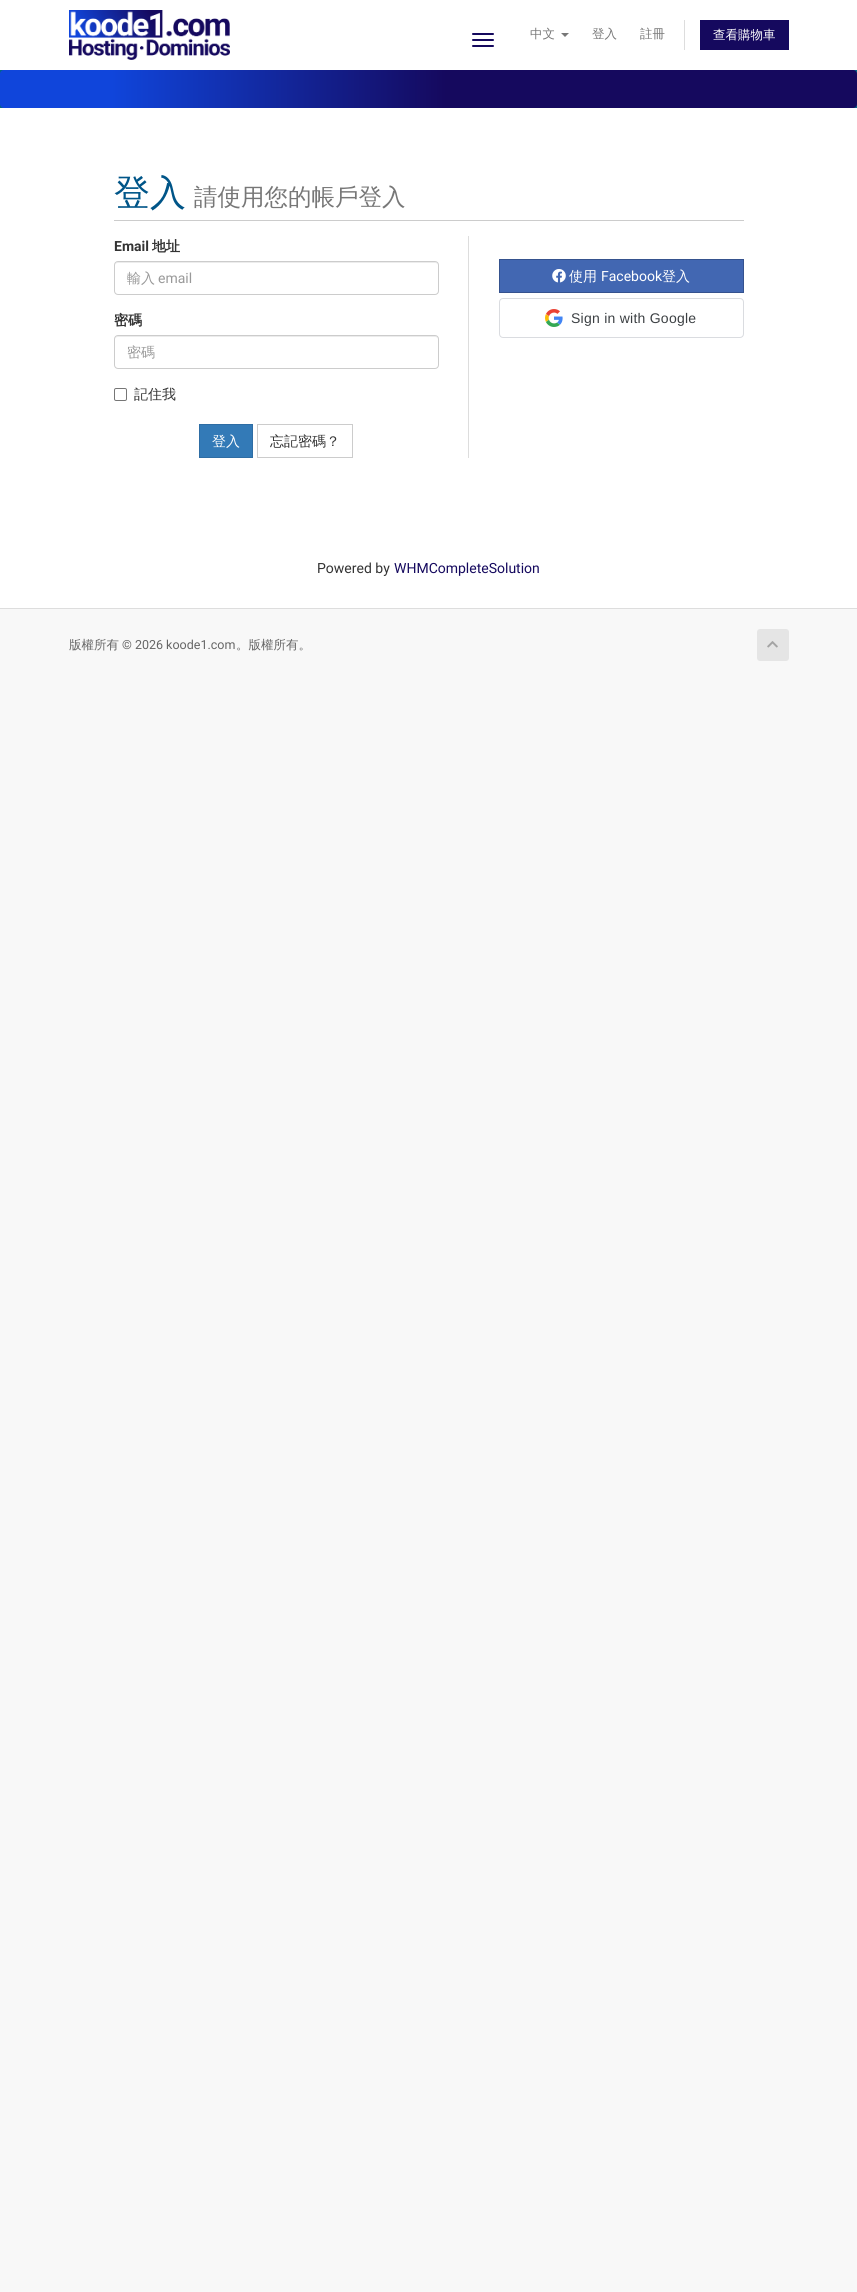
#include <cairo.h>
#include <math.h>
#include <stddef.h>


static void set_color(cairo_t *cr, unsigned color) {
    cairo_set_source_rgb(cr, (color >> 16) / 255.0, (color >> 8 & 255) / 255.0, (color & 255) / 255.0);
}

static void draw_text(cairo_t *cr, double x, double y, const char *s, const char *family, double size, int italic, int bold, unsigned color) {
    cairo_select_font_face(cr, family, italic ? CAIRO_FONT_SLANT_ITALIC : CAIRO_FONT_SLANT_NORMAL,
        bold ? CAIRO_FONT_WEIGHT_BOLD : CAIRO_FONT_WEIGHT_NORMAL);
    cairo_set_font_size(cr, size);
    set_color(cr, color);
    cairo_move_to(cr, x, y);
    cairo_show_text(cr, s);
}

static void draw_spaced(cairo_t *cr, double x, double y, const char *s, double letter, double word) {
    cairo_move_to(cr, x, y);
    while (*s) {
        char ch[5] = {0};
        int n = 0;
        do ch[n++] = *s++; while ((*s & 0xC0) == 0x80);
        cairo_show_text(cr, ch);
        cairo_rel_move_to(cr, letter + word * (*ch == ' '), 0);
    }
}

static void fill_rect(cairo_t *cr, double x, double y, double w, double h, unsigned color) {
    set_color(cr, color);
    cairo_rectangle(cr, x, y, w, h);
    cairo_fill(cr);
}

static void rounded_rect(cairo_t *cr, double x, double y, double w, double h, double r) {
    cairo_new_sub_path(cr);
    cairo_arc(cr, x + w - r, y + h - r, r, 0, M_PI / 2);
    cairo_arc(cr, x + r, y + h - r, r, M_PI / 2, M_PI);
    cairo_arc(cr, x + r, y + r, r, M_PI, 1.5 * M_PI);
    cairo_arc(cr, x + w - r, y + r, r, 1.5 * M_PI, 2 * M_PI);
    cairo_close_path(cr);
}

static void draw_image(cairo_t *cr, const char *path, double x, double y, double w, double h) {
    cairo_surface_t *image = cairo_image_surface_create_from_png(path);
    cairo_save(cr);
    cairo_set_source_surface(cr, image, x, y);
    cairo_rectangle(cr, x, y, w, h);
    cairo_fill(cr);
    cairo_restore(cr);
    cairo_surface_destroy(image);
}

int main(void) {
    cairo_surface_t *surface = cairo_image_surface_create(CAIRO_FORMAT_RGB24, 857, 2292);
    cairo_t *cr = cairo_create(surface);
    cairo_font_options_t *options = cairo_font_options_create();
    cairo_font_options_set_hint_metrics(options, CAIRO_HINT_METRICS_OFF);
    cairo_font_options_set_hint_style(options, CAIRO_HINT_STYLE_NONE);
    cairo_set_font_options(cr, options);
    cairo_set_miter_limit(cr, 4);
    cairo_pattern_t *gradient;
    set_color(cr, 0xF8F8F8);
    cairo_paint(cr);
    fill_rect(cr, 0, 0, 857, 70, 0xFFFFFF);
    draw_image(cr, "assets/img1.png", 69, 10, 161, 50);
    draw_text(cr, 530, 38, "中文", "WenQuanYi Zen Hei Medium", 12.5, 0, 0, 0x777777);
    cairo_new_path(cr);
    cairo_move_to(cr, 561, 33);
    cairo_line_to(cr, 569, 33);
    cairo_line_to(cr, 565, 37);
    cairo_close_path(cr);
    cairo_fill(cr);
    draw_text(cr, 592, 38, "登入", "WenQuanYi Zen Hei Medium", 12.5, 0, 0, 0x777777);
    draw_text(cr, 640, 38, "註冊", "WenQuanYi Zen Hei Medium", 12.5, 0, 0, 0x777777);
    fill_rect(cr, 684, 20, 1, 30, 0xDDDDDD);
    fill_rect(cr, 700, 20, 89, 30, 0x15095E);
    draw_text(cr, 713, 39, "查看購物車", "WenQuanYi Zen Hei Medium", 12.5, 0, 0, 0xFFFFFF);
    fill_rect(cr, 0, 70, 857, 38, 0x006687);
    gradient = cairo_pattern_create_linear(0, 89, 857, 89);
    cairo_pattern_add_color_stop_rgba(gradient, 0, 0.063, 0.271, 0.859, 1);
    cairo_pattern_add_color_stop_rgba(gradient, 0.13, 0.063, 0.271, 0.859, 1);
    cairo_pattern_add_color_stop_rgba(gradient, 0.52, 0.082, 0.035, 0.369, 1);
    cairo_pattern_add_color_stop_rgba(gradient, 1, 0.082, 0.035, 0.369, 1);
    cairo_set_source(cr, gradient);
    cairo_pattern_destroy(gradient);
    rounded_rect(cr, 0, 70, 857, 38, 4);
    cairo_fill(cr);
    set_color(cr, 0x15095E);
    rounded_rect(cr, 472, 33, 22, 2, 1);
    cairo_fill(cr);
    rounded_rect(cr, 472, 39, 22, 2, 1);
    cairo_fill(cr);
    rounded_rect(cr, 472, 45, 22, 2, 1);
    cairo_fill(cr);
    fill_rect(cr, 0, 108, 857, 500, 0xFFFFFF);
    fill_rect(cr, 114, 220, 630, 1, 0xCCCCCC);
    draw_text(cr, 114, 205, "登入", "WenQuanYi Zen Hei Medium", 36, 0, 0, 0x005588);
    draw_text(cr, 194, 205, "請使用您的帳戶登入", "WenQuanYi Zen Hei Medium", 23.5, 0, 0, 0x777777);
    fill_rect(cr, 468, 236, 1, 222, 0xDDDDDD);
    draw_text(cr, 114, 251, "Email", "Roboto", 14, 0, 1, 0x333333);
    draw_text(cr, 152, 251, "地址", "WenQuanYi Zen Hei", 14, 0, 1, 0x333333);
    set_color(cr, 0xECECEC);
    cairo_new_path(cr);
    cairo_move_to(cr, 118, 263);
    cairo_line_to(cr, 435, 263);
    cairo_curve_to(cr, 437, 263, 438, 264, 438, 266);
    cairo_curve_to(cr, 438, 264, 437, 262, 435, 262);
    cairo_line_to(cr, 118, 262);
    cairo_curve_to(cr, 116, 262, 115, 264, 115, 266);
    cairo_curve_to(cr, 115, 264, 116, 263, 118, 263);
    cairo_close_path(cr);
    cairo_fill(cr);
    rounded_rect(cr, 114.5, 261.5, 324, 33, 3.5);
    set_color(cr, 0xCCCCCC);
    cairo_set_line_width(cr, 1);
    cairo_stroke(cr);
    cairo_save(cr);
    cairo_rectangle(cr, 127, 270, 299, 18);
    cairo_clip(cr);
    draw_text(cr, 127, 283, "輸入", "WenQuanYi Zen Hei Medium", 14, 0, 0, 0x999999);
    cairo_restore(cr);
    draw_text(cr, 158, 283, "email", "Roboto", 14, 0, 0, 0x999999);
    draw_text(cr, 114, 325, "密碼", "WenQuanYi Zen Hei", 14, 0, 1, 0x333333);
    set_color(cr, 0xECECEC);
    cairo_new_path(cr);
    cairo_move_to(cr, 118, 337);
    cairo_line_to(cr, 435, 337);
    cairo_curve_to(cr, 437, 337, 438, 338, 438, 340);
    cairo_curve_to(cr, 438, 338, 437, 336, 435, 336);
    cairo_line_to(cr, 118, 336);
    cairo_curve_to(cr, 116, 336, 115, 338, 115, 340);
    cairo_curve_to(cr, 115, 338, 116, 337, 118, 337);
    cairo_close_path(cr);
    cairo_fill(cr);
    rounded_rect(cr, 114.5, 335.5, 324, 33, 3.5);
    set_color(cr, 0xCCCCCC);
    cairo_stroke(cr);
    draw_text(cr, 127, 357, "密碼", "WenQuanYi Zen Hei Medium", 14, 0, 0, 0x999999);
    rounded_rect(cr, 114.5, 388.5, 12, 12, 1.5);
    set_color(cr, 0x767676);
    cairo_stroke(cr);
    draw_text(cr, 134, 399, "記住我", "WenQuanYi Zen Hei Medium", 14, 0, 0, 0x333333);
    set_color(cr, 0x337AB7);
    cairo_rectangle(cr, 199.5, 424.5, 53, 33);
    cairo_fill_preserve(cr);
    set_color(cr, 0x2E6DA4);
    cairo_stroke(cr);
    draw_text(cr, 212, 446, "登入", "WenQuanYi Zen Hei Medium", 14, 0, 0, 0xFFFFFF);
    cairo_rectangle(cr, 257.5, 424.5, 95, 33);
    set_color(cr, 0xCCCCCC);
    cairo_stroke(cr);
    draw_text(cr, 270, 446, "忘記密碼？", "WenQuanYi Zen Hei Medium", 14, 0, 0, 0x333333);
    set_color(cr, 0x4267B2);
    cairo_rectangle(cr, 499.5, 259.5, 244, 33);
    cairo_fill_preserve(cr);
    set_color(cr, 0x35528E);
    cairo_stroke(cr);
    draw_image(cr, "assets/img2.png", 552, 269, 14, 14);
    draw_text(cr, 569, 281, "使用", "WenQuanYi Zen Hei Medium", 14, 0, 0, 0xFFFFFF);
    draw_text(cr, 601, 281, "Facebook", "Roboto", 14, 0, 0, 0xFFFFFF);
    draw_text(cr, 662, 281, "登入", "WenQuanYi Zen Hei Medium", 14, 0, 0, 0xFFFFFF);
    rounded_rect(cr, 499.5, 298.5, 244, 39, 3.5);
    set_color(cr, 0xDADCE0);
    cairo_stroke(cr);
    draw_image(cr, "assets/img3.png", 545, 309, 18, 18);
    cairo_select_font_face(cr, "Liberation Sans", CAIRO_FONT_SLANT_NORMAL, CAIRO_FONT_WEIGHT_NORMAL);
    set_color(cr, 0x3C4043);
    draw_spaced(cr, 571, 323, "Sign in with Google", 0.25, 0);
    draw_text(cr, 317, 573, "Powered by", "Roboto", 14, 0, 0, 0x333333);
    draw_text(cr, 394, 573, "WHMCompleteSolution", "Roboto", 14, 0, 0, 0x15095E);
    fill_rect(cr, 0, 608, 857, 1, 0xDDDDDD);
    draw_text(cr, 69, 649, "版權所有", "WenQuanYi Zen Hei Medium", 12.5, 0, 0, 0x666666);
    draw_text(cr, 122, 649, "© 2026 koode1.com", "Roboto", 12.5, 0, 0, 0x666666);
    draw_text(cr, 236, 649, "。版權所有。", "WenQuanYi Zen Hei Medium", 12.5, 0, 0, 0x666666);
    set_color(cr, 0xE5E5E5);
    rounded_rect(cr, 757, 629, 32, 32, 3);
    cairo_fill(cr);
    draw_image(cr, "assets/img4.png", 767, 641, 11, 7);
    cairo_surface_write_to_png(surface, "output.png");
    cairo_font_options_destroy(options);
    cairo_destroy(cr);
    cairo_surface_destroy(surface);
    return 0;
}
